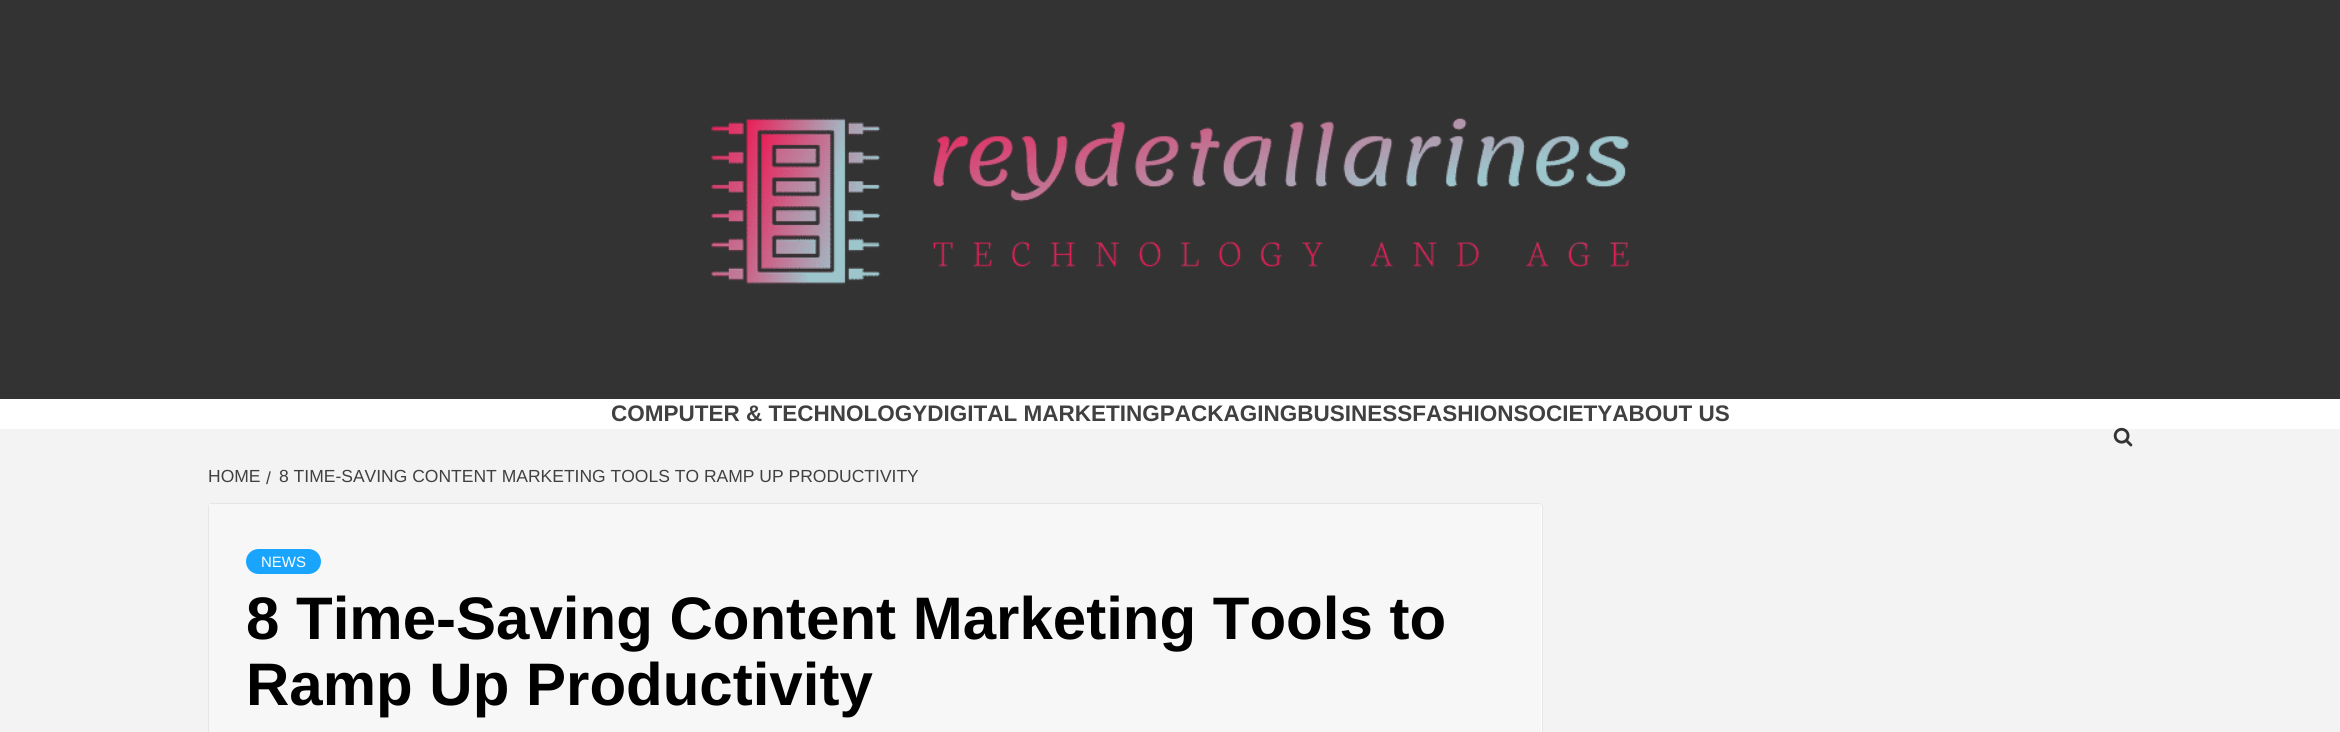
#include <cairo.h>
#include <math.h>
#include <stddef.h>


static void set_color(cairo_t *cr, unsigned color) {
    cairo_set_source_rgb(cr, (color >> 16) / 255.0, (color >> 8 & 255) / 255.0, (color & 255) / 255.0);
}

static void draw_text(cairo_t *cr, double x, double y, const char *s, const char *family, double size, int italic, int bold, unsigned color) {
    cairo_select_font_face(cr, family, italic ? CAIRO_FONT_SLANT_ITALIC : CAIRO_FONT_SLANT_NORMAL,
        bold ? CAIRO_FONT_WEIGHT_BOLD : CAIRO_FONT_WEIGHT_NORMAL);
    cairo_set_font_size(cr, size);
    set_color(cr, color);
    cairo_move_to(cr, x, y);
    cairo_show_text(cr, s);
}

static void fill_rect(cairo_t *cr, double x, double y, double w, double h, unsigned color) {
    set_color(cr, color);
    cairo_rectangle(cr, x, y, w, h);
    cairo_fill(cr);
}

static void rounded_rect(cairo_t *cr, double x, double y, double w, double h, double r) {
    cairo_new_sub_path(cr);
    cairo_arc(cr, x + w - r, y + h - r, r, 0, M_PI / 2);
    cairo_arc(cr, x + r, y + h - r, r, M_PI / 2, M_PI);
    cairo_arc(cr, x + r, y + r, r, M_PI, 1.5 * M_PI);
    cairo_arc(cr, x + w - r, y + r, r, 1.5 * M_PI, 2 * M_PI);
    cairo_close_path(cr);
}

static void draw_image(cairo_t *cr, const char *path, double x, double y, double w, double h) {
    cairo_surface_t *image = cairo_image_surface_create_from_png(path);
    cairo_save(cr);
    cairo_set_source_surface(cr, image, x, y);
    cairo_rectangle(cr, x, y, w, h);
    cairo_fill(cr);
    cairo_restore(cr);
    cairo_surface_destroy(image);
}

int main(void) {
    cairo_surface_t *surface = cairo_image_surface_create(CAIRO_FORMAT_RGB24, 2340, 732);
    cairo_t *cr = cairo_create(surface);
    cairo_font_options_t *options = cairo_font_options_create();
    cairo_font_options_set_hint_metrics(options, CAIRO_HINT_METRICS_OFF);
    cairo_font_options_set_hint_style(options, CAIRO_HINT_STYLE_NONE);
    cairo_set_font_options(cr, options);
    cairo_set_miter_limit(cr, 4);
    set_color(cr, 0xF3F3F3);
    cairo_paint(cr);
    fill_rect(cr, 0, 0, 2340, 399, 0x333333);
    draw_image(cr, "assets/img1.png", 711, 117, 918, 169);
    fill_rect(cr, 0, 399, 2340, 30, 0xFFFFFF);
    draw_text(cr, 611, 421, "COMPUTER & TECHNOLOGYDIGITAL MARKETINGPACKAGINGBUSINESSFASHIONSOCIETYABOUT US", "Liberation Sans", 22.5, 0, 1, 0x404040);
    draw_image(cr, "assets/img2.png", 2113, 427, 20, 20);
    draw_text(cr, 208, 482, "HOME", "Liberation Sans", 17.5, 0, 0, 0x404040);
    draw_text(cr, 266, 484, "/", "Liberation Sans", 17.5, 0, 0, 0x404040);
    draw_text(cr, 279, 482, "8 TIME-SAVING CONTENT MARKETING TOOLS TO RAMP UP PRODUCTIVITY", "Liberation Sans", 17.5, 0, 0, 0x404040);
    set_color(cr, 0xFFFFFF);
    rounded_rect(cr, 208, 503, 1335, 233, 4);
    cairo_fill(cr);
    rounded_rect(cr, 208.5, 503.5, 1334, 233, 3.5);
    cairo_set_source_rgba(cr, 0, 0.004, 0.004, 0.1);
    cairo_set_line_width(cr, 1);
    cairo_stroke(cr);
    fill_rect(cr, 209, 504, 1332, 228, 0xF7F7F7);
    set_color(cr, 0x19A5FE);
    rounded_rect(cr, 246, 549, 75, 25, 12.5);
    cairo_fill(cr);
    draw_text(cr, 261, 567, "NEWS", "Liberation Sans", 15, 0, 0, 0xFEFEFE);
    draw_text(cr, 246, 639, "8 Time-Saving Content Marketing Tools to", "Liberation Sans", 60, 0, 1, 0x000000);
    draw_text(cr, 246, 705, "Ramp Up Productivity", "Liberation Sans", 60, 0, 1, 0x000000);
    cairo_surface_write_to_png(surface, "output.png");
    cairo_font_options_destroy(options);
    cairo_destroy(cr);
    cairo_surface_destroy(surface);
    return 0;
}
